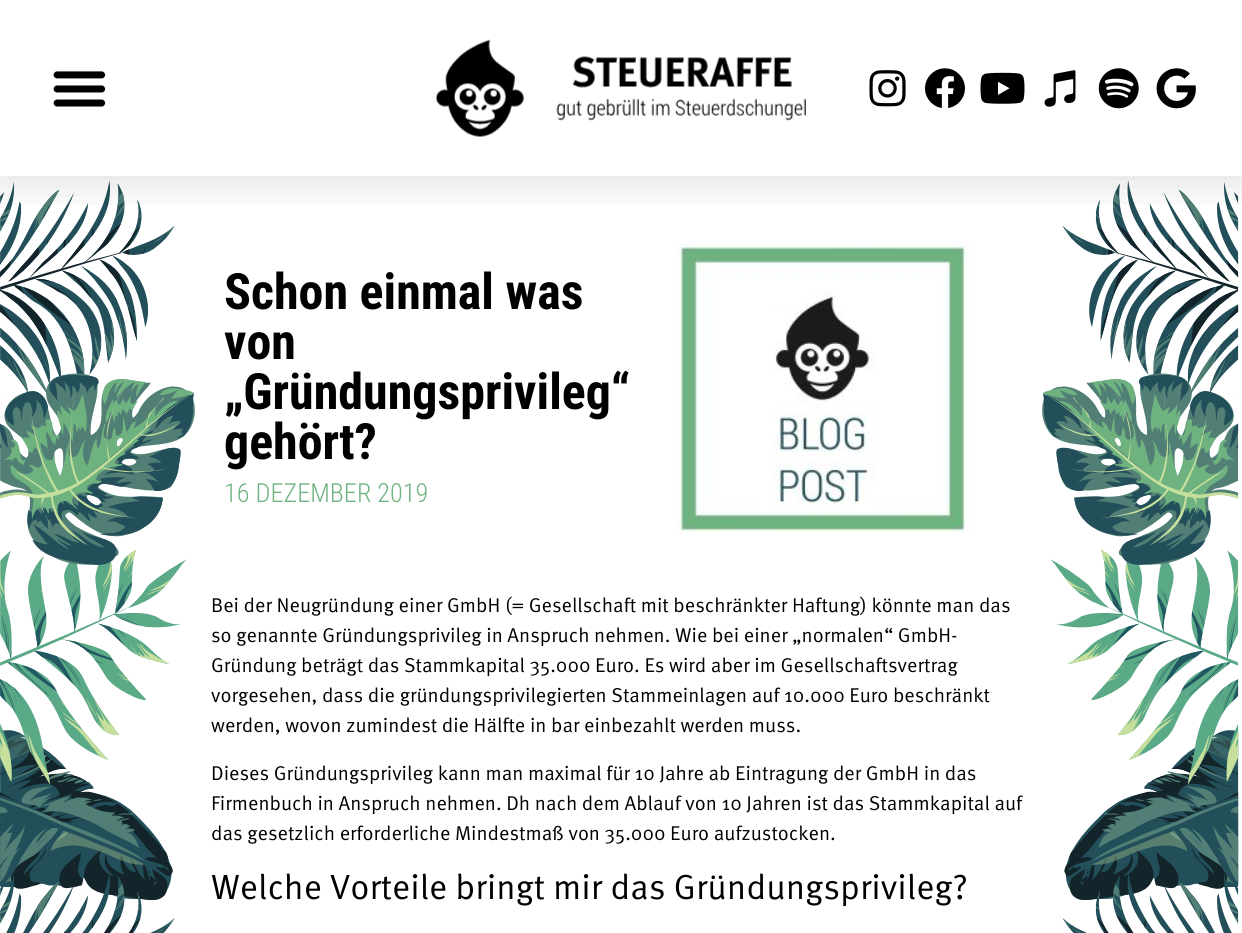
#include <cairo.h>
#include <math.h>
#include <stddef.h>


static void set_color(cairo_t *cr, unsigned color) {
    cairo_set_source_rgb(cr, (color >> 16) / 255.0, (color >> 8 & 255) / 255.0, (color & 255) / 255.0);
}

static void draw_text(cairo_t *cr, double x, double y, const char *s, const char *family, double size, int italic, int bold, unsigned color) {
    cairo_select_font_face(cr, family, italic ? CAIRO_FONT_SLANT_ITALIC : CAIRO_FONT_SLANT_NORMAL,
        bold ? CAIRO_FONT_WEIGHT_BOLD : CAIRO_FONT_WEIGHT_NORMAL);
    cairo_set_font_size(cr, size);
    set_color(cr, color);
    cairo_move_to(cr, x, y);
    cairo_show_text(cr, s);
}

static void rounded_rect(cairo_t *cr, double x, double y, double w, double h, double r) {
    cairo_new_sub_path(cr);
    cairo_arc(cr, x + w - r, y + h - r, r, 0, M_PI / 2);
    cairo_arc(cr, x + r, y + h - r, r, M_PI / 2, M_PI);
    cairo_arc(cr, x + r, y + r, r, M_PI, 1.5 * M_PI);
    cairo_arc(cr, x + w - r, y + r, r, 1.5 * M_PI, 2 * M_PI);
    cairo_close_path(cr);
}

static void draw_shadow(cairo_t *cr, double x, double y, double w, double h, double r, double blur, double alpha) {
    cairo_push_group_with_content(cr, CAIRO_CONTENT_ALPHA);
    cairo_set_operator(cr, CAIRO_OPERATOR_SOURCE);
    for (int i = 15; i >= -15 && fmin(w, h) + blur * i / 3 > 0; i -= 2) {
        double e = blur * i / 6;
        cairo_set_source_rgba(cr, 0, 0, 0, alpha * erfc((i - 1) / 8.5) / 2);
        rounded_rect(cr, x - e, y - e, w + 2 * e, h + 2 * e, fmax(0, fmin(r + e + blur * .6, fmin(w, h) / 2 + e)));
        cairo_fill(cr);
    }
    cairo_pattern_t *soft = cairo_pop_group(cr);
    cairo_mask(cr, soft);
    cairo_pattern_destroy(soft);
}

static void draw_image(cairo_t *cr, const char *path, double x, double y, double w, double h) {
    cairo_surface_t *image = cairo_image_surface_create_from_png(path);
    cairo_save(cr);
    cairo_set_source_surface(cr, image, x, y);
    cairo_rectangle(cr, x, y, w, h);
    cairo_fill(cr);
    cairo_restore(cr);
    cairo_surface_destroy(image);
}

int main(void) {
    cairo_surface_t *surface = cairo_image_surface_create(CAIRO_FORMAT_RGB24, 1242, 933);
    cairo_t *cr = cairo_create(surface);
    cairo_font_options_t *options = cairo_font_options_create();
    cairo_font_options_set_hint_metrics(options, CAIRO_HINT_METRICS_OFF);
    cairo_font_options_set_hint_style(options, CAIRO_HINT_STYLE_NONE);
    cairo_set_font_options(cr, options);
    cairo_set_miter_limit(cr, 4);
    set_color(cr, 0xFFFFFF);
    cairo_paint(cr);
    draw_image(cr, "assets/img9.png", 0, 180, 195, 753);
    draw_image(cr, "assets/img10.png", 675, 241, 300, 293);
    draw_image(cr, "assets/img11.png", 1042, 180, 197, 753);
    cairo_save(cr);
    cairo_rectangle(cr, 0, 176, 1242, 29);
    cairo_clip(cr);
    set_color(cr, 0x000000);
    draw_shadow(cr, 0, 0, 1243, 176, 0, 25, 0.16);
    cairo_restore(cr);
    draw_image(cr, "assets/img1.png", 53, 71, 53, 36);
    draw_image(cr, "assets/img2.png", 435, 39, 371, 98);
    draw_image(cr, "assets/img3.png", 869, 70, 37, 37);
    draw_image(cr, "assets/img4.png", 925, 68, 40, 40);
    draw_image(cr, "assets/img5.png", 980, 72, 45, 32);
    draw_image(cr, "assets/img6.png", 1044, 70, 32, 37);
    draw_image(cr, "assets/img7.png", 1098, 68, 41, 41);
    draw_image(cr, "assets/img8.png", 1156, 68, 40, 41);
    draw_text(cr, 224, 309, "Schon einmal was", "Roboto Condensed", 50, 0, 1, 0x000000);
    draw_text(cr, 224, 359, "von", "Roboto Condensed", 50, 0, 1, 0x000000);
    draw_text(cr, 224, 409, "„Gründungsprivileg“", "Roboto Condensed", 50, 0, 1, 0x000000);
    draw_text(cr, 224, 459, "gehört?", "Roboto Condensed", 50, 0, 1, 0x000000);
    draw_text(cr, 224, 502, "16 DEZEMBER 2019", "Roboto Condensed Light", 26.25, 0, 0, 0x6EB280);
    draw_text(cr, 211, 612, "Bei der Neugründung einer GmbH (= Gesellschaft mit beschränkter Haftung) könnte man das", "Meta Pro", 20, 0, 0, 0x000000);
    draw_text(cr, 211, 642, "so genannte Gründungsprivileg in Anspruch nehmen. Wie bei einer „normalen“ GmbH-", "Meta Pro", 20, 0, 0, 0x000000);
    draw_text(cr, 211, 672, "Gründung beträgt das Stammkapital 35.000 Euro. Es wird aber im Gesellschaftsvertrag", "Meta Pro", 20, 0, 0, 0x000000);
    draw_text(cr, 211, 702, "vorgesehen, dass die gründungsprivilegierten Stammeinlagen auf 10.000 Euro beschränkt", "Meta Pro", 20, 0, 0, 0x000000);
    draw_text(cr, 211, 732, "werden, wovon zumindest die Hälfte in bar einbezahlt werden muss.", "Meta Pro", 20, 0, 0, 0x000000);
    draw_text(cr, 211, 780, "Dieses Gründungsprivileg kann man maximal für 10 Jahre ab Eintragung der GmbH in das", "Meta Pro", 20, 0, 0, 0x000000);
    draw_text(cr, 211, 810, "Firmenbuch in Anspruch nehmen. Dh nach dem Ablauf von 10 Jahren ist das Stammkapital auf", "Meta Pro", 20, 0, 0, 0x000000);
    draw_text(cr, 211, 840, "das gesetzlich erforderliche Mindestmaß von 35.000 Euro aufzustocken.", "Meta Pro", 20, 0, 0, 0x000000);
    draw_text(cr, 211, 899, "Welche Vorteile bringt mir das Gründungsprivileg?", "Meta Pro", 35, 0, 0, 0x000000);
    cairo_surface_write_to_png(surface, "output.png");
    cairo_font_options_destroy(options);
    cairo_destroy(cr);
    cairo_surface_destroy(surface);
    return 0;
}
